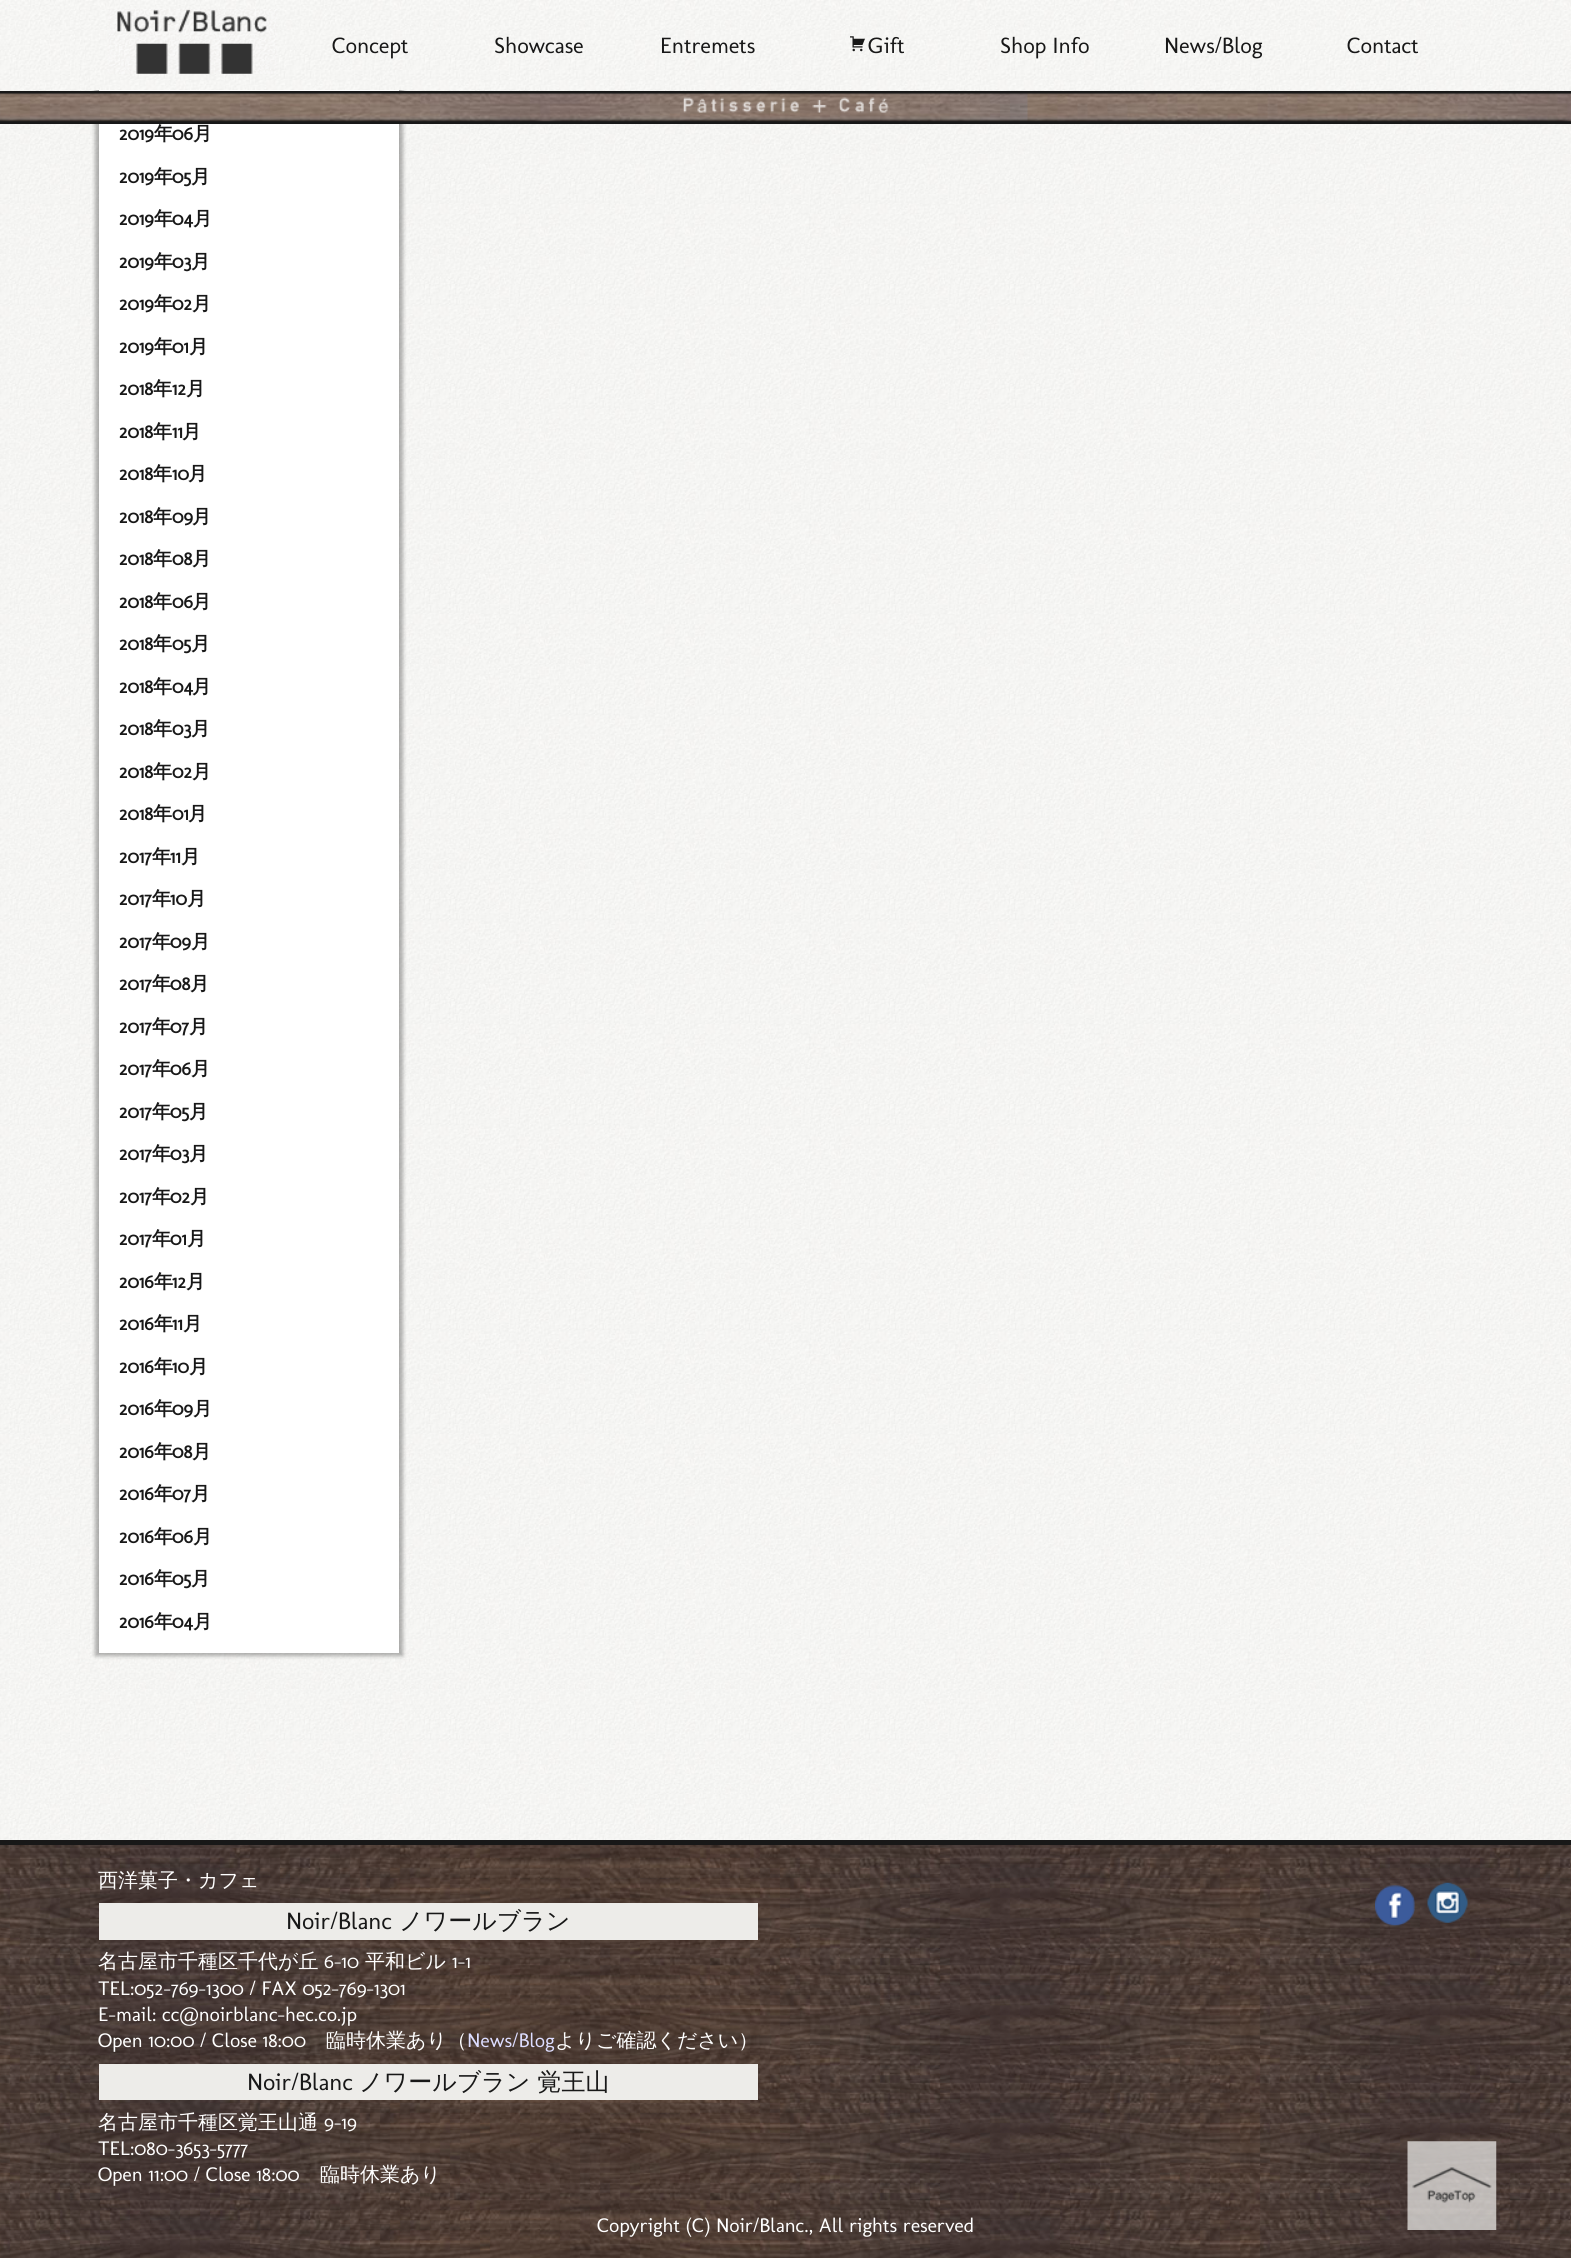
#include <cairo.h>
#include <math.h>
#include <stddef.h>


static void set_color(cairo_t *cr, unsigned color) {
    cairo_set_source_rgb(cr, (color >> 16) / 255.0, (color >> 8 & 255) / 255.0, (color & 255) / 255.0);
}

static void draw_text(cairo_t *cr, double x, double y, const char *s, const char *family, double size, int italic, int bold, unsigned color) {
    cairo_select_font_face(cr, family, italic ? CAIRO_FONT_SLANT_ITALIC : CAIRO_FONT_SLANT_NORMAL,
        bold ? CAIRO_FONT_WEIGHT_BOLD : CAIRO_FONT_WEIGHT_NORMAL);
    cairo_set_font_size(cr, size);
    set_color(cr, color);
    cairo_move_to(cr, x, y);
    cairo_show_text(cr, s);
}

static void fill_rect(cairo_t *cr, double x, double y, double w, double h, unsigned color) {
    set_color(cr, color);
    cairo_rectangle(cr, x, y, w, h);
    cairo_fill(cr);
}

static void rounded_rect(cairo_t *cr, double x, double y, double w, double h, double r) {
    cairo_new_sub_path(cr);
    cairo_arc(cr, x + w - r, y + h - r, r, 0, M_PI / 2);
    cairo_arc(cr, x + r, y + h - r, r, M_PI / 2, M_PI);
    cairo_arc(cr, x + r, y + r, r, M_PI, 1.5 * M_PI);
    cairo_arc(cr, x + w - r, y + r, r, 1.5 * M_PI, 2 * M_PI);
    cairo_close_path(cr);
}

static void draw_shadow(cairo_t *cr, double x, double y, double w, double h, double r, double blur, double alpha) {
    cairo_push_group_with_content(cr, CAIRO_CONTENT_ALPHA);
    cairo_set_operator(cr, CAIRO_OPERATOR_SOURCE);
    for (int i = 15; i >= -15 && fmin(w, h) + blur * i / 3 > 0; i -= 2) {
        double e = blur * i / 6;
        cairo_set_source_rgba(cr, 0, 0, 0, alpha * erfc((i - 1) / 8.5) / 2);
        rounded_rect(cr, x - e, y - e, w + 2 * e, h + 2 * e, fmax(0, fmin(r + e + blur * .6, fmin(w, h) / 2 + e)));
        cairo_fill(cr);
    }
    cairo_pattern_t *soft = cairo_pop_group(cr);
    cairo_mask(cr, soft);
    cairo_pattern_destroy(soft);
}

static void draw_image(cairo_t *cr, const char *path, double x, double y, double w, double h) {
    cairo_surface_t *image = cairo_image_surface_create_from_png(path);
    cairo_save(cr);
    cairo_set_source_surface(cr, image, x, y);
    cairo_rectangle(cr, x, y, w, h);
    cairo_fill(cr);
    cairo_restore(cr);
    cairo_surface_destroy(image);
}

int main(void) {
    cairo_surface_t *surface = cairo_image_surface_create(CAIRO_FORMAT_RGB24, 1571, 2258);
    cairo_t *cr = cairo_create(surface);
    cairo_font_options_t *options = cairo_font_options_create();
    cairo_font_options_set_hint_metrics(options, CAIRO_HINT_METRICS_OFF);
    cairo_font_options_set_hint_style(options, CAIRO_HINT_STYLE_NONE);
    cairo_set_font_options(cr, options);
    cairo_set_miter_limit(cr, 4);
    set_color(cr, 0xFFFFFF);
    cairo_paint(cr);
    draw_image(cr, "assets/img6.png", 0, 90, 1571, 1750);
    set_color(cr, 0x000000);
    draw_shadow(cr, 95, -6, 308, 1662, 0, 2, 0.3);
    draw_image(cr, "assets/img1.png", 0, 0, 1571, 90);
    draw_image(cr, "assets/img2.png", 107, 9, 171, 65);
    draw_text(cr, 332, 53, "Concept", "Molengo", 22.5, 0, 0, 0x181818);
    draw_text(cr, 494, 53, "Showcase", "Molengo", 22.5, 0, 0, 0x181818);
    draw_text(cr, 660, 53, "Entremets", "Molengo", 22.5, 0, 0, 0x181818);
    draw_image(cr, "assets/img3.png", 850, 36, 15, 16);
    draw_text(cr, 868, 53, "Gift", "Molengo", 22.5, 0, 0, 0x181818);
    draw_text(cr, 1000, 53, "Shop Info", "Molengo", 22.5, 0, 0, 0x181818);
    draw_text(cr, 1164, 53, "News/Blog", "Molengo", 22.5, 0, 0, 0x181818);
    draw_text(cr, 1347, 53, "Contact", "Molengo", 22.5, 0, 0, 0x181818);
    fill_rect(cr, 99, 90, 300, 1563, 0xFFFFFF);
    fill_rect(cr, 0, 91, 1571, 33, 0x181818);
    draw_image(cr, "assets/img4.png", 0, 93, 1571, 29);
    draw_image(cr, "assets/img5.png", 683, 97, 206, 16);
    draw_text(cr, 119, 140, "2019", "Molengo", 19, 0, 1, 0x181818);
    draw_text(cr, 154, 140, "年", "WenQuanYi Zen Hei", 19, 0, 1, 0x181818);
    draw_text(cr, 172, 140, "06", "Molengo", 19, 0, 1, 0x181818);
    draw_text(cr, 193, 140, "月", "WenQuanYi Zen Hei", 19, 0, 1, 0x181818);
    draw_text(cr, 119, 183, "2019", "Molengo", 19, 0, 1, 0x181818);
    draw_text(cr, 154, 183, "年", "WenQuanYi Zen Hei", 19, 0, 1, 0x181818);
    draw_text(cr, 172, 183, "05", "Molengo", 19, 0, 1, 0x181818);
    draw_text(cr, 191, 183, "月", "WenQuanYi Zen Hei", 19, 0, 1, 0x181818);
    draw_text(cr, 119, 225, "2019", "Molengo", 19, 0, 1, 0x181818);
    draw_text(cr, 154, 225, "年", "WenQuanYi Zen Hei", 19, 0, 1, 0x181818);
    draw_text(cr, 172, 225, "04", "Molengo", 19, 0, 1, 0x181818);
    draw_text(cr, 193, 225, "月", "WenQuanYi Zen Hei", 19, 0, 1, 0x181818);
    draw_text(cr, 119, 268, "2019", "Molengo", 19, 0, 1, 0x181818);
    draw_text(cr, 154, 268, "年", "WenQuanYi Zen Hei", 19, 0, 1, 0x181818);
    draw_text(cr, 172, 268, "03", "Molengo", 19, 0, 1, 0x181818);
    draw_text(cr, 191, 268, "月", "WenQuanYi Zen Hei", 19, 0, 1, 0x181818);
    draw_text(cr, 119, 310, "2019", "Molengo", 19, 0, 1, 0x181818);
    draw_text(cr, 154, 310, "年", "WenQuanYi Zen Hei", 19, 0, 1, 0x181818);
    draw_text(cr, 172, 310, "02", "Molengo", 19, 0, 1, 0x181818);
    draw_text(cr, 192, 310, "月", "WenQuanYi Zen Hei", 19, 0, 1, 0x181818);
    draw_text(cr, 119, 353, "2019", "Molengo", 19, 0, 1, 0x181818);
    draw_text(cr, 154, 353, "年", "WenQuanYi Zen Hei", 19, 0, 1, 0x181818);
    draw_text(cr, 172, 353, "01", "Molengo", 19, 0, 1, 0x181818);
    draw_text(cr, 189, 353, "月", "WenQuanYi Zen Hei", 19, 0, 1, 0x181818);
    draw_text(cr, 119, 395, "2018", "Molengo", 19, 0, 1, 0x181818);
    draw_text(cr, 153, 395, "年", "WenQuanYi Zen Hei", 19, 0, 1, 0x181818);
    draw_text(cr, 172, 395, "12", "Molengo", 19, 0, 1, 0x181818);
    draw_text(cr, 186, 395, "月", "WenQuanYi Zen Hei", 19, 0, 1, 0x181818);
    draw_text(cr, 119, 438, "2018", "Molengo", 19, 0, 1, 0x181818);
    draw_text(cr, 153, 438, "年", "WenQuanYi Zen Hei", 19, 0, 1, 0x181818);
    draw_text(cr, 172, 438, "11", "Molengo", 19, 0, 1, 0x181818);
    draw_text(cr, 182, 438, "月", "WenQuanYi Zen Hei", 19, 0, 1, 0x181818);
    draw_text(cr, 119, 480, "2018", "Molengo", 19, 0, 1, 0x181818);
    draw_text(cr, 153, 480, "年", "WenQuanYi Zen Hei", 19, 0, 1, 0x181818);
    draw_text(cr, 172, 480, "10", "Molengo", 19, 0, 1, 0x181818);
    draw_text(cr, 188, 480, "月", "WenQuanYi Zen Hei", 19, 0, 1, 0x181818);
    draw_text(cr, 119, 523, "2018", "Molengo", 19, 0, 1, 0x181818);
    draw_text(cr, 153, 523, "年", "WenQuanYi Zen Hei", 19, 0, 1, 0x181818);
    draw_text(cr, 172, 523, "09", "Molengo", 19, 0, 1, 0x181818);
    draw_text(cr, 192, 523, "月", "WenQuanYi Zen Hei", 19, 0, 1, 0x181818);
    draw_text(cr, 119, 565, "2018", "Molengo", 19, 0, 1, 0x181818);
    draw_text(cr, 153, 565, "年", "WenQuanYi Zen Hei", 19, 0, 1, 0x181818);
    draw_text(cr, 172, 565, "08", "Molengo", 19, 0, 1, 0x181818);
    draw_text(cr, 192, 565, "月", "WenQuanYi Zen Hei", 19, 0, 1, 0x181818);
    draw_text(cr, 119, 608, "2018", "Molengo", 19, 0, 1, 0x181818);
    draw_text(cr, 153, 608, "年", "WenQuanYi Zen Hei", 19, 0, 1, 0x181818);
    draw_text(cr, 172, 608, "06", "Molengo", 19, 0, 1, 0x181818);
    draw_text(cr, 192, 608, "月", "WenQuanYi Zen Hei", 19, 0, 1, 0x181818);
    draw_text(cr, 119, 650, "2018", "Molengo", 19, 0, 1, 0x181818);
    draw_text(cr, 153, 650, "年", "WenQuanYi Zen Hei", 19, 0, 1, 0x181818);
    draw_text(cr, 172, 650, "05", "Molengo", 19, 0, 1, 0x181818);
    draw_text(cr, 191, 650, "月", "WenQuanYi Zen Hei", 19, 0, 1, 0x181818);
    draw_text(cr, 119, 693, "2018", "Molengo", 19, 0, 1, 0x181818);
    draw_text(cr, 153, 693, "年", "WenQuanYi Zen Hei", 19, 0, 1, 0x181818);
    draw_text(cr, 172, 693, "04", "Molengo", 19, 0, 1, 0x181818);
    draw_text(cr, 192, 693, "月", "WenQuanYi Zen Hei", 19, 0, 1, 0x181818);
    draw_text(cr, 119, 735, "2018", "Molengo", 19, 0, 1, 0x181818);
    draw_text(cr, 153, 735, "年", "WenQuanYi Zen Hei", 19, 0, 1, 0x181818);
    draw_text(cr, 172, 735, "03", "Molengo", 19, 0, 1, 0x181818);
    draw_text(cr, 191, 735, "月", "WenQuanYi Zen Hei", 19, 0, 1, 0x181818);
    draw_text(cr, 119, 778, "2018", "Molengo", 19, 0, 1, 0x181818);
    draw_text(cr, 153, 778, "年", "WenQuanYi Zen Hei", 19, 0, 1, 0x181818);
    draw_text(cr, 172, 778, "02", "Molengo", 19, 0, 1, 0x181818);
    draw_text(cr, 192, 778, "月", "WenQuanYi Zen Hei", 19, 0, 1, 0x181818);
    draw_text(cr, 119, 820, "2018", "Molengo", 19, 0, 1, 0x181818);
    draw_text(cr, 153, 820, "年", "WenQuanYi Zen Hei", 19, 0, 1, 0x181818);
    draw_text(cr, 172, 820, "01", "Molengo", 19, 0, 1, 0x181818);
    draw_text(cr, 188, 820, "月", "WenQuanYi Zen Hei", 19, 0, 1, 0x181818);
    draw_text(cr, 119, 863, "2017", "Molengo", 19, 0, 1, 0x181818);
    draw_text(cr, 152, 863, "年", "WenQuanYi Zen Hei", 19, 0, 1, 0x181818);
    draw_text(cr, 170, 863, "11", "Molengo", 19, 0, 1, 0x181818);
    draw_text(cr, 181, 863, "月", "WenQuanYi Zen Hei", 19, 0, 1, 0x181818);
    draw_text(cr, 119, 905, "2017", "Molengo", 19, 0, 1, 0x181818);
    draw_text(cr, 152, 905, "年", "WenQuanYi Zen Hei", 19, 0, 1, 0x181818);
    draw_text(cr, 170, 905, "10", "Molengo", 19, 0, 1, 0x181818);
    draw_text(cr, 187, 905, "月", "WenQuanYi Zen Hei", 19, 0, 1, 0x181818);
    draw_text(cr, 119, 948, "2017", "Molengo", 19, 0, 1, 0x181818);
    draw_text(cr, 152, 948, "年", "WenQuanYi Zen Hei", 19, 0, 1, 0x181818);
    draw_text(cr, 170, 948, "09", "Molengo", 19, 0, 1, 0x181818);
    draw_text(cr, 191, 948, "月", "WenQuanYi Zen Hei", 19, 0, 1, 0x181818);
    draw_text(cr, 119, 990, "2017", "Molengo", 19, 0, 1, 0x181818);
    draw_text(cr, 152, 990, "年", "WenQuanYi Zen Hei", 19, 0, 1, 0x181818);
    draw_text(cr, 170, 990, "08", "Molengo", 19, 0, 1, 0x181818);
    draw_text(cr, 190, 990, "月", "WenQuanYi Zen Hei", 19, 0, 1, 0x181818);
    draw_text(cr, 119, 1033, "2017", "Molengo", 19, 0, 1, 0x181818);
    draw_text(cr, 152, 1033, "年", "WenQuanYi Zen Hei", 19, 0, 1, 0x181818);
    draw_text(cr, 170, 1033, "07", "Molengo", 19, 0, 1, 0x181818);
    draw_text(cr, 189, 1033, "月", "WenQuanYi Zen Hei", 19, 0, 1, 0x181818);
    draw_text(cr, 119, 1075, "2017", "Molengo", 19, 0, 1, 0x181818);
    draw_text(cr, 152, 1075, "年", "WenQuanYi Zen Hei", 19, 0, 1, 0x181818);
    draw_text(cr, 170, 1075, "06", "Molengo", 19, 0, 1, 0x181818);
    draw_text(cr, 191, 1075, "月", "WenQuanYi Zen Hei", 19, 0, 1, 0x181818);
    draw_text(cr, 119, 1118, "2017", "Molengo", 19, 0, 1, 0x181818);
    draw_text(cr, 152, 1118, "年", "WenQuanYi Zen Hei", 19, 0, 1, 0x181818);
    draw_text(cr, 170, 1118, "05", "Molengo", 19, 0, 1, 0x181818);
    draw_text(cr, 189, 1118, "月", "WenQuanYi Zen Hei", 19, 0, 1, 0x181818);
    draw_text(cr, 119, 1160, "2017", "Molengo", 19, 0, 1, 0x181818);
    draw_text(cr, 152, 1160, "年", "WenQuanYi Zen Hei", 19, 0, 1, 0x181818);
    draw_text(cr, 170, 1160, "03", "Molengo", 19, 0, 1, 0x181818);
    draw_text(cr, 189, 1160, "月", "WenQuanYi Zen Hei", 19, 0, 1, 0x181818);
    draw_text(cr, 119, 1203, "2017", "Molengo", 19, 0, 1, 0x181818);
    draw_text(cr, 152, 1203, "年", "WenQuanYi Zen Hei", 19, 0, 1, 0x181818);
    draw_text(cr, 170, 1203, "02", "Molengo", 19, 0, 1, 0x181818);
    draw_text(cr, 190, 1203, "月", "WenQuanYi Zen Hei", 19, 0, 1, 0x181818);
    draw_text(cr, 119, 1245, "2017", "Molengo", 19, 0, 1, 0x181818);
    draw_text(cr, 152, 1245, "年", "WenQuanYi Zen Hei", 19, 0, 1, 0x181818);
    draw_text(cr, 170, 1245, "01", "Molengo", 19, 0, 1, 0x181818);
    draw_text(cr, 187, 1245, "月", "WenQuanYi Zen Hei", 19, 0, 1, 0x181818);
    draw_text(cr, 119, 1288, "2016", "Molengo", 19, 0, 1, 0x181818);
    draw_text(cr, 154, 1288, "年", "WenQuanYi Zen Hei", 19, 0, 1, 0x181818);
    draw_text(cr, 172, 1288, "12", "Molengo", 19, 0, 1, 0x181818);
    draw_text(cr, 186, 1288, "月", "WenQuanYi Zen Hei", 19, 0, 1, 0x181818);
    draw_text(cr, 119, 1330, "2016", "Molengo", 19, 0, 1, 0x181818);
    draw_text(cr, 154, 1330, "年", "WenQuanYi Zen Hei", 19, 0, 1, 0x181818);
    draw_text(cr, 172, 1330, "11", "Molengo", 19, 0, 1, 0x181818);
    draw_text(cr, 183, 1330, "月", "WenQuanYi Zen Hei", 19, 0, 1, 0x181818);
    draw_text(cr, 119, 1373, "2016", "Molengo", 19, 0, 1, 0x181818);
    draw_text(cr, 154, 1373, "年", "WenQuanYi Zen Hei", 19, 0, 1, 0x181818);
    draw_text(cr, 172, 1373, "10", "Molengo", 19, 0, 1, 0x181818);
    draw_text(cr, 189, 1373, "月", "WenQuanYi Zen Hei", 19, 0, 1, 0x181818);
    draw_text(cr, 119, 1415, "2016", "Molengo", 19, 0, 1, 0x181818);
    draw_text(cr, 154, 1415, "年", "WenQuanYi Zen Hei", 19, 0, 1, 0x181818);
    draw_text(cr, 172, 1415, "09", "Molengo", 19, 0, 1, 0x181818);
    draw_text(cr, 193, 1415, "月", "WenQuanYi Zen Hei", 19, 0, 1, 0x181818);
    draw_text(cr, 119, 1458, "2016", "Molengo", 19, 0, 1, 0x181818);
    draw_text(cr, 154, 1458, "年", "WenQuanYi Zen Hei", 19, 0, 1, 0x181818);
    draw_text(cr, 172, 1458, "08", "Molengo", 19, 0, 1, 0x181818);
    draw_text(cr, 192, 1458, "月", "WenQuanYi Zen Hei", 19, 0, 1, 0x181818);
    draw_text(cr, 119, 1500, "2016", "Molengo", 19, 0, 1, 0x181818);
    draw_text(cr, 154, 1500, "年", "WenQuanYi Zen Hei", 19, 0, 1, 0x181818);
    draw_text(cr, 172, 1500, "07", "Molengo", 19, 0, 1, 0x181818);
    draw_text(cr, 191, 1500, "月", "WenQuanYi Zen Hei", 19, 0, 1, 0x181818);
    draw_text(cr, 119, 1543, "2016", "Molengo", 19, 0, 1, 0x181818);
    draw_text(cr, 154, 1543, "年", "WenQuanYi Zen Hei", 19, 0, 1, 0x181818);
    draw_text(cr, 172, 1543, "06", "Molengo", 19, 0, 1, 0x181818);
    draw_text(cr, 193, 1543, "月", "WenQuanYi Zen Hei", 19, 0, 1, 0x181818);
    draw_text(cr, 119, 1585, "2016", "Molengo", 19, 0, 1, 0x181818);
    draw_text(cr, 154, 1585, "年", "WenQuanYi Zen Hei", 19, 0, 1, 0x181818);
    draw_text(cr, 172, 1585, "05", "Molengo", 19, 0, 1, 0x181818);
    draw_text(cr, 191, 1585, "月", "WenQuanYi Zen Hei", 19, 0, 1, 0x181818);
    draw_text(cr, 119, 1628, "2016", "Molengo", 19, 0, 1, 0x181818);
    draw_text(cr, 154, 1628, "年", "WenQuanYi Zen Hei", 19, 0, 1, 0x181818);
    draw_text(cr, 172, 1628, "04", "Molengo", 19, 0, 1, 0x181818);
    draw_text(cr, 193, 1628, "月", "WenQuanYi Zen Hei", 19, 0, 1, 0x181818);
    draw_image(cr, "assets/img7.png", 0, 1845, 1571, 413);
    fill_rect(cr, 0, 1840, 1571, 5, 0x181818);
    draw_text(cr, 98, 1887, "西洋菓子・カフェ", "WenQuanYi Zen Hei Medium", 20, 0, 0, 0xFFFFFF);
    fill_rect(cr, 99, 1903, 659, 37, 0xEDECE9);
    draw_text(cr, 286, 1929, "Noir/Blanc", "Molengo", 24, 0, 0, 0x181818);
    draw_text(cr, 399, 1929, "ノワールブラン", "WenQuanYi Zen Hei Medium", 24, 0, 0, 0x181818);
    draw_text(cr, 98, 1968, "名古屋市千種区千代が丘", "WenQuanYi Zen Hei Medium", 20, 0, 0, 0xFFFFFF);
    draw_text(cr, 324, 1968, "6-10", "Molengo", 20, 0, 0, 0xFFFFFF);
    draw_text(cr, 365, 1968, "平和ビル", "WenQuanYi Zen Hei Medium", 20, 0, 0, 0xFFFFFF);
    draw_text(cr, 452, 1968, "1-1", "Molengo", 20, 0, 0, 0xFFFFFF);
    draw_text(cr, 98, 1995, "TEL:052-769-1300 / FAX 052-769-1301", "Molengo", 20, 0, 0, 0xFFFFFF);
    draw_text(cr, 98, 2021, "E-mail: cc@noirblanc-hec.co.jp", "Molengo", 20, 0, 0, 0xFFFFFF);
    draw_text(cr, 98, 2047, "Open 10:00 / Close 18:00", "Molengo", 20, 0, 0, 0xFFFFFF);
    draw_text(cr, 326, 2047, "臨時休業あり（", "WenQuanYi Zen Hei Medium", 20, 0, 0, 0xFFFFFF);
    draw_text(cr, 467, 2047, "News/Blog", "Molengo", 20, 0, 0, 0xDDDDFF);
    draw_text(cr, 555, 2047, "よりご確認ください）", "WenQuanYi Zen Hei Medium", 20, 0, 0, 0xFFFFFF);
    fill_rect(cr, 99, 2064, 659, 36, 0xEDECE9);
    draw_text(cr, 247, 2090, "Noir/Blanc", "Molengo", 24, 0, 0, 0x181818);
    draw_text(cr, 359, 2090, "ノワールブラン 覚王山", "WenQuanYi Zen Hei Medium", 24, 0, 0, 0x181818);
    draw_text(cr, 98, 2129, "名古屋市千種区覚王山通", "WenQuanYi Zen Hei Medium", 20, 0, 0, 0xFFFFFF);
    draw_text(cr, 324, 2129, "9-19", "Molengo", 20, 0, 0, 0xFFFFFF);
    draw_text(cr, 98, 2155, "TEL:080-3653-5777", "Molengo", 20, 0, 0, 0xFFFFFF);
    draw_text(cr, 98, 2181, "Open 11:00 / Close 18:00", "Molengo", 20, 0, 0, 0xFFFFFF);
    draw_text(cr, 320, 2181, "臨時休業あり", "WenQuanYi Zen Hei Medium", 20, 0, 0, 0xFFFFFF);
    draw_image(cr, "assets/img8.png", 1375, 1883, 40, 43);
    draw_image(cr, "assets/img9.png", 1427, 1882, 41, 41);
    draw_text(cr, 597, 2232, "Copyright (C) Noir/Blanc., All rights reserved", "Molengo", 20, 0, 0, 0xFFFFFF);
    draw_image(cr, "assets/img10.png", 1407, 2141, 90, 89);
    cairo_surface_write_to_png(surface, "output.png");
    cairo_font_options_destroy(options);
    cairo_destroy(cr);
    cairo_surface_destroy(surface);
    return 0;
}
